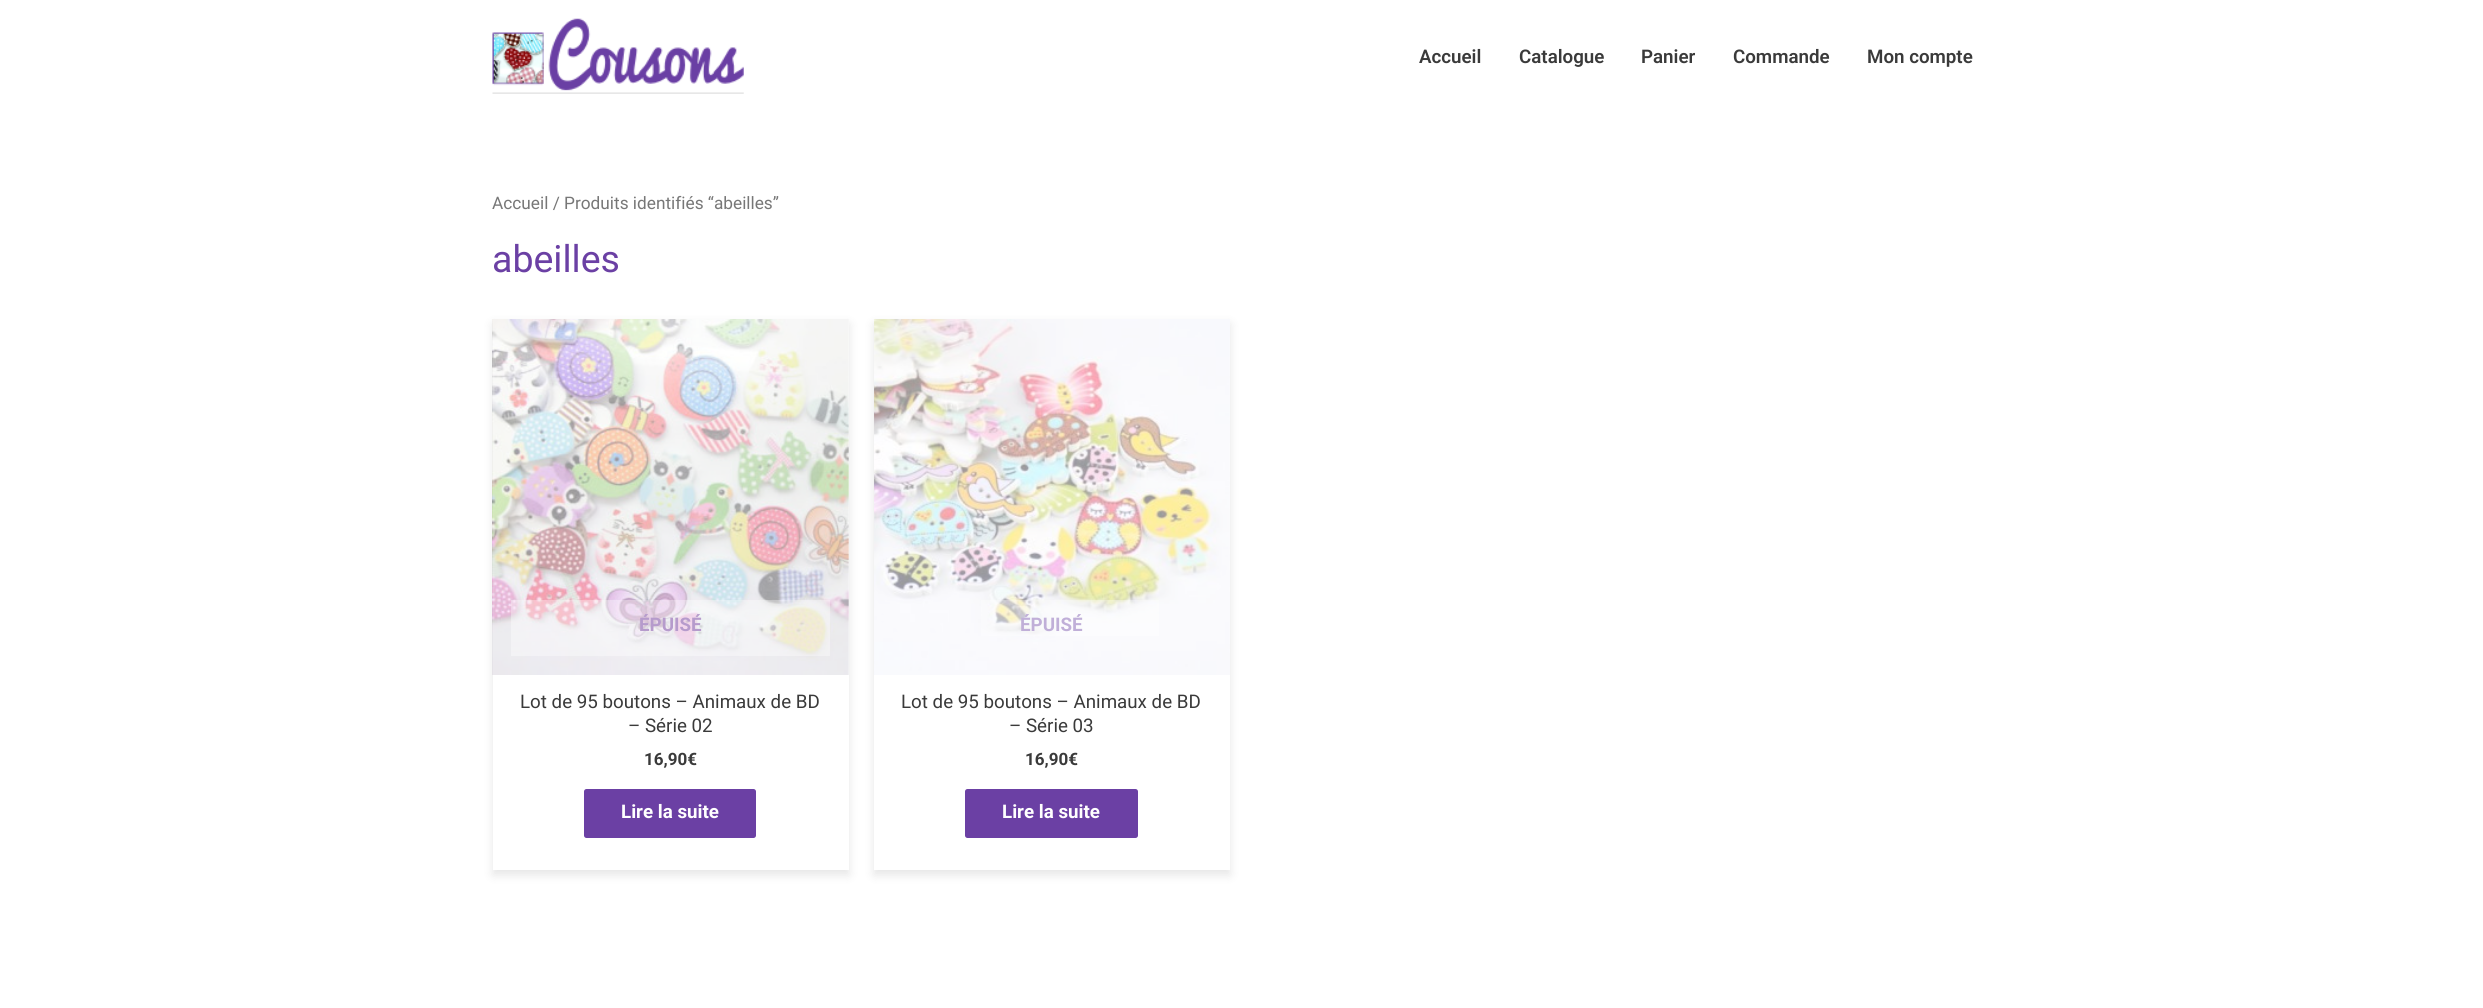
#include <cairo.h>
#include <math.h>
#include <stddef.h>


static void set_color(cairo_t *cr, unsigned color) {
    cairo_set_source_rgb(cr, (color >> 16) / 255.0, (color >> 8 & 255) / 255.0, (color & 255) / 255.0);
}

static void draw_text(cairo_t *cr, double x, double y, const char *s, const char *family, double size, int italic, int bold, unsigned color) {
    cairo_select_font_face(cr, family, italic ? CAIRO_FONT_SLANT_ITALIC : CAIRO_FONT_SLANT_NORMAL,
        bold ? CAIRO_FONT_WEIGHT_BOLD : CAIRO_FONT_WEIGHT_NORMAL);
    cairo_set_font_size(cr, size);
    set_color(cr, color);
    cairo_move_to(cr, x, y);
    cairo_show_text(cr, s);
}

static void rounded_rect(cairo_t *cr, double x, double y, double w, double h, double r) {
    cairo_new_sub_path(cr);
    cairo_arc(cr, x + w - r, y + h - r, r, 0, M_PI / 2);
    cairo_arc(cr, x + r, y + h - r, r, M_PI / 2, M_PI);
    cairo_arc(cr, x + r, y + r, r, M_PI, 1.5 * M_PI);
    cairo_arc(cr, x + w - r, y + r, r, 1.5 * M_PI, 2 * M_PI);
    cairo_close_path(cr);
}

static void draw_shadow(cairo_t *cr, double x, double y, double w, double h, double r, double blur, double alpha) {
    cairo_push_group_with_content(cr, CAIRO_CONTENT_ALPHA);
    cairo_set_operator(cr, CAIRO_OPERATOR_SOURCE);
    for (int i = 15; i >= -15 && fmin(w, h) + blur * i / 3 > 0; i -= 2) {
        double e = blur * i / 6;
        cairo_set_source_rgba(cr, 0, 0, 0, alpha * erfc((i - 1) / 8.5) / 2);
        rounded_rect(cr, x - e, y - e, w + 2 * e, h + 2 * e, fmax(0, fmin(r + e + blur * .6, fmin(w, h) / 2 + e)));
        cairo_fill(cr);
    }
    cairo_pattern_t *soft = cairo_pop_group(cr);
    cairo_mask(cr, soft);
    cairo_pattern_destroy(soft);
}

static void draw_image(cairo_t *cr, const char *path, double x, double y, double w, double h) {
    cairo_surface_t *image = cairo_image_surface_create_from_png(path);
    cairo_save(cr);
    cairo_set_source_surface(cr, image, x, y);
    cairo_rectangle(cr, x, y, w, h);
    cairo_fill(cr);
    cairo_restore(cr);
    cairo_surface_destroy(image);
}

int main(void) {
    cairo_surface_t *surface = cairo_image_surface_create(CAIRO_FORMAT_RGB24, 2483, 1008);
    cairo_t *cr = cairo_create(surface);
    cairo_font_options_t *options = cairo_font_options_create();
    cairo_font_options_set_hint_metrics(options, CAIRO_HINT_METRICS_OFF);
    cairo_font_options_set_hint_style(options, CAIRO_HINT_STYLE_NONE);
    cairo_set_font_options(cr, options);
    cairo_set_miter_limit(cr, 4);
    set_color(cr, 0xFFFFFF);
    cairo_paint(cr);
    draw_image(cr, "assets/img1.png", 492, 18, 252, 76);
    draw_text(cr, 1419, 63, "Accueil", "Roboto SemiBold", 18.75, 0, 0, 0x3A3A3A);
    draw_text(cr, 1519, 63, "Catalogue", "Roboto SemiBold", 18.75, 0, 0, 0x3A3A3A);
    draw_text(cr, 1641, 63, "Panier", "Roboto SemiBold", 18.75, 0, 0, 0x3A3A3A);
    draw_text(cr, 1733, 63, "Commande", "Roboto SemiBold", 18.75, 0, 0, 0x3A3A3A);
    draw_text(cr, 1867, 63, "Mon compte", "Roboto SemiBold", 18.75, 0, 0, 0x3A3A3A);
    draw_text(cr, 492, 209, "Accueil / Produits identifiés “abeilles”", "Roboto", 17.25, 0, 0, 0x777777);
    draw_text(cr, 492, 272, "abeilles", "Roboto", 37.5, 0, 0, 0x6B40A4);
    cairo_save(cr);
    cairo_set_fill_rule(cr, CAIRO_FILL_RULE_EVEN_ODD);
    cairo_new_path(cr);
    cairo_move_to(cr, 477, 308);
    cairo_line_to(cr, 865, 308);
    cairo_line_to(cr, 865, 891);
    cairo_line_to(cr, 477, 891);
    cairo_close_path(cr);
    cairo_move_to(cr, 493, 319);
    cairo_line_to(cr, 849, 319);
    cairo_line_to(cr, 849, 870);
    cairo_line_to(cr, 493, 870);
    cairo_close_path(cr);
    cairo_clip(cr);
    set_color(cr, 0x000000);
    draw_shadow(cr, 493, 324, 356, 551, 0, 5, 0.1);
    cairo_restore(cr);
    draw_image(cr, "assets/img2.png", 492, 319, 357, 356);
    cairo_set_source_rgba(cr, 1, 1, 1, 0.35);
    cairo_rectangle(cr, 511, 600, 319, 56);
    cairo_fill(cr);
    draw_text(cr, 639, 631, "ÉPUISÉ", "Roboto", 18.75, 0, 1, 0xB69BCC);
    draw_text(cr, 520, 708, "Lot de 95 boutons – Animaux de BD", "Roboto", 18.75, 0, 0, 0x3A3A3A);
    draw_text(cr, 628, 732, "– Série 02", "Roboto", 18.75, 0, 0, 0x3A3A3A);
    draw_text(cr, 644, 765, "16,90€", "Roboto", 17, 0, 1, 0x3A3A3A);
    set_color(cr, 0x6B40A4);
    rounded_rect(cr, 584, 789, 172, 49, 2.5);
    cairo_fill(cr);
    draw_text(cr, 621, 818, "Lire la suite", "Roboto", 18.75, 0, 1, 0xFFFFFF);
    cairo_save(cr);
    cairo_set_fill_rule(cr, CAIRO_FILL_RULE_EVEN_ODD);
    cairo_new_path(cr);
    cairo_move_to(cr, 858, 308);
    cairo_line_to(cr, 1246, 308);
    cairo_line_to(cr, 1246, 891);
    cairo_line_to(cr, 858, 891);
    cairo_close_path(cr);
    cairo_move_to(cr, 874, 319);
    cairo_line_to(cr, 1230, 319);
    cairo_line_to(cr, 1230, 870);
    cairo_line_to(cr, 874, 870);
    cairo_close_path(cr);
    cairo_clip(cr);
    set_color(cr, 0x000000);
    draw_shadow(cr, 874, 324, 356, 551, 0, 5, 0.1);
    cairo_restore(cr);
    draw_image(cr, "assets/img3.png", 874, 319, 356, 356);
    cairo_set_source_rgba(cr, 1, 1, 1, 0.35);
    cairo_rectangle(cr, 981, 600, 178, 36);
    cairo_fill(cr);
    draw_text(cr, 1020, 631, "ÉPUISÉ", "Roboto", 18.75, 0, 1, 0xC0AFD8);
    draw_text(cr, 901, 708, "Lot de 95 boutons – Animaux de BD", "Roboto", 18.75, 0, 0, 0x3A3A3A);
    draw_text(cr, 1009, 732, "– Série 03", "Roboto", 18.75, 0, 0, 0x3A3A3A);
    draw_text(cr, 1025, 765, "16,90€", "Roboto", 17, 0, 1, 0x3A3A3A);
    set_color(cr, 0x6B40A4);
    rounded_rect(cr, 965, 789, 173, 49, 2.5);
    cairo_fill(cr);
    draw_text(cr, 1002, 818, "Lire la suite", "Roboto", 18.75, 0, 1, 0xFFFFFF);
    cairo_surface_write_to_png(surface, "output.png");
    cairo_font_options_destroy(options);
    cairo_destroy(cr);
    cairo_surface_destroy(surface);
    return 0;
}
